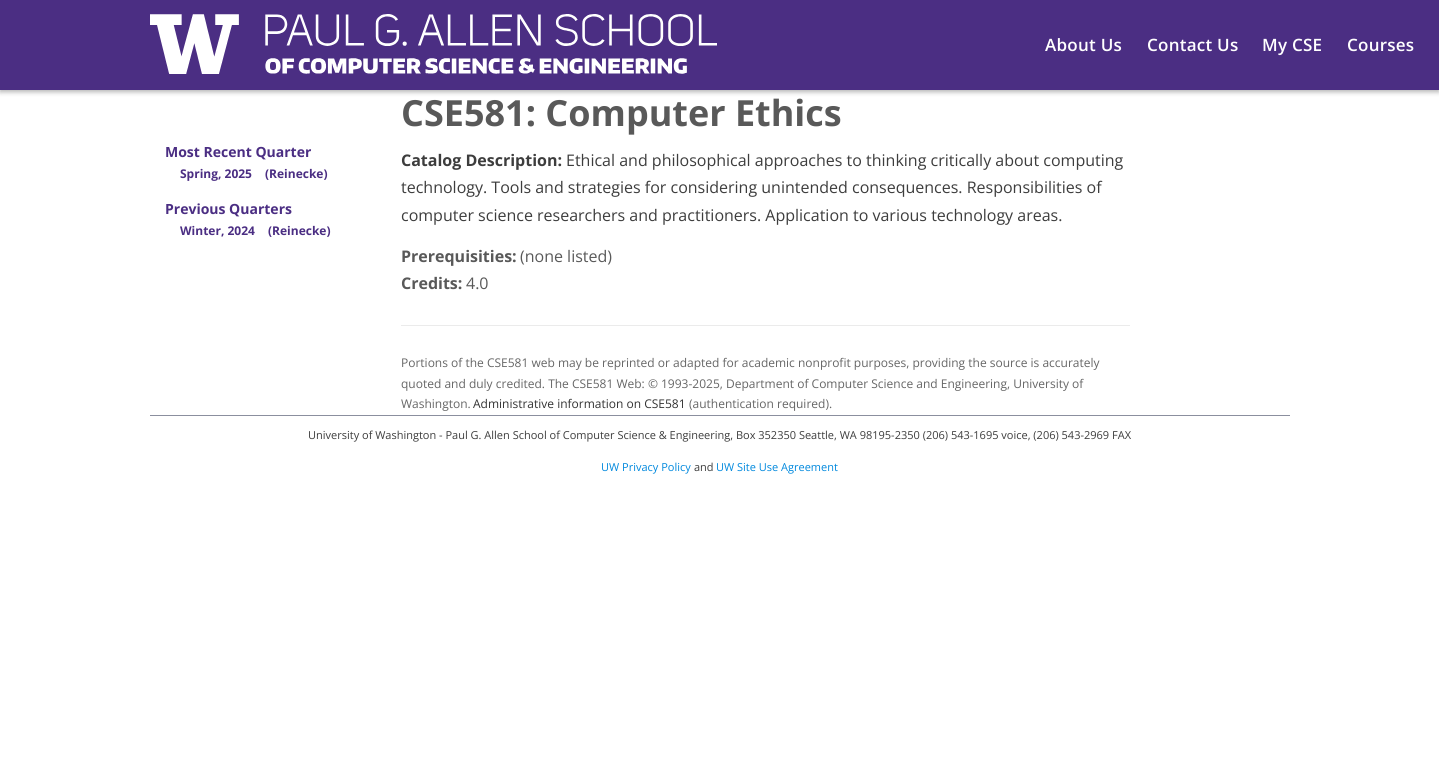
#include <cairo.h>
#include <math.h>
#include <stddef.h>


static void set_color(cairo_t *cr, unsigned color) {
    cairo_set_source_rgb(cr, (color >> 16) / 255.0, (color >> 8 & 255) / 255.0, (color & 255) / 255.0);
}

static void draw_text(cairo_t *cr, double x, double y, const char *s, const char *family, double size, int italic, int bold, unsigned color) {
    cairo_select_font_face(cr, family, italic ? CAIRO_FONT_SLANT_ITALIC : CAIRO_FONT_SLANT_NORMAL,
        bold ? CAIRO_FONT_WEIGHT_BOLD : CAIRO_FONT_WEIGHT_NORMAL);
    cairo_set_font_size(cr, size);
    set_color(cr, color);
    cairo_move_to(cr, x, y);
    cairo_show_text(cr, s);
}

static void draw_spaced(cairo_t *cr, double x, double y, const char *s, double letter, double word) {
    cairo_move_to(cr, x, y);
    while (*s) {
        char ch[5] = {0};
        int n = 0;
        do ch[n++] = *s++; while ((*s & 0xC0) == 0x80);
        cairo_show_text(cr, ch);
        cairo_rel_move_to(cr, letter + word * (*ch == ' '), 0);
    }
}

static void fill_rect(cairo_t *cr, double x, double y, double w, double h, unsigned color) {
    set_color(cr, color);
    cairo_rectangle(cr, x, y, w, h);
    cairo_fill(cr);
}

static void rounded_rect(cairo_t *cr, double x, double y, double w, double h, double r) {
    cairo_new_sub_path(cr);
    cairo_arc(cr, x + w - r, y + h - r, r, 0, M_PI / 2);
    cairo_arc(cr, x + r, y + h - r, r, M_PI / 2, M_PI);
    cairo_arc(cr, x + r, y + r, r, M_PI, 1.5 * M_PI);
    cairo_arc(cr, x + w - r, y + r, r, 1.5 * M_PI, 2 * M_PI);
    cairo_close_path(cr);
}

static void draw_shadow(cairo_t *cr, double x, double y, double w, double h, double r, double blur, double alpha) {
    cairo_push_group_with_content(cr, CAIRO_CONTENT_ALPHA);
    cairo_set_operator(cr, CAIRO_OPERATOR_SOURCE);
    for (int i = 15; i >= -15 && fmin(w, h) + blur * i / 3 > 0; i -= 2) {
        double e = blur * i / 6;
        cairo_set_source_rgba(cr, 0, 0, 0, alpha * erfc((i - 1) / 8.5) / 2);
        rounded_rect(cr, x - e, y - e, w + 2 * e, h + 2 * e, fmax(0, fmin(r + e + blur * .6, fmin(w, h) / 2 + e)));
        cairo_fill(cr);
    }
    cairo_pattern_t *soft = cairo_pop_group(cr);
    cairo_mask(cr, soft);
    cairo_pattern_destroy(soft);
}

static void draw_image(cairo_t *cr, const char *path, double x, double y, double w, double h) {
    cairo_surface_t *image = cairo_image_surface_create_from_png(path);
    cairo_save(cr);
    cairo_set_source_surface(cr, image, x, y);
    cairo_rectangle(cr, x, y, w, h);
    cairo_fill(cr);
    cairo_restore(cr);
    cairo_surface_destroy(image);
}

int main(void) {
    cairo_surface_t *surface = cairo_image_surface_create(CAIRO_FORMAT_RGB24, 1439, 777);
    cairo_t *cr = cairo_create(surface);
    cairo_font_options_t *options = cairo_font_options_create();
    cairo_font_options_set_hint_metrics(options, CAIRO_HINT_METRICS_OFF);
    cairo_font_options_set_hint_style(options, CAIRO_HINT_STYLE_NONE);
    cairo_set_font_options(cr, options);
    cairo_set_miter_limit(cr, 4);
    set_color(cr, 0xFFFFFF);
    cairo_paint(cr);
    set_color(cr, 0x000000);
    draw_shadow(cr, 0, 2, 1439, 90, 0, 2.5, 0.3);
    fill_rect(cr, 0, 0, 1439, 90, 0x4B2E83);
    draw_image(cr, "assets/img1.png", 150, 14, 567, 60);
    cairo_select_font_face(cr, "Open Sans SemiBold", CAIRO_FONT_SLANT_NORMAL, CAIRO_FONT_WEIGHT_NORMAL);
    cairo_set_font_size(cr, 17);
    set_color(cr, 0xFFFFFF);
    draw_spaced(cr, 1045, 51, "About Us", 0.25, 0);
    draw_spaced(cr, 1147, 51, "Contact Us", 0.25, 0);
    draw_spaced(cr, 1262, 51, "My CSE", 0.25, 0);
    draw_spaced(cr, 1347, 51, "Courses", 0.25, 0);
    draw_text(cr, 165, 157, "Most Recent Quarter", "Open Sans", 14, 0, 1, 0x4B2E83);
    draw_text(cr, 180, 178, "Spring, 2025", "Open Sans", 12, 0, 1, 0x4B2E83);
    draw_text(cr, 265, 178, "(Reinecke)", "Open Sans", 12, 0, 1, 0x4B2E83);
    draw_text(cr, 165, 214, "Previous Quarters", "Open Sans", 14, 0, 1, 0x4B2E83);
    draw_text(cr, 180, 235, "Winter, 2024", "Open Sans", 12, 0, 1, 0x4B2E83);
    draw_text(cr, 268, 235, "(Reinecke)", "Open Sans", 12, 0, 1, 0x4B2E83);
    draw_text(cr, 401, 126, "CSE581: Computer Ethics", "Open Sans", 36, 0, 1, 0x595959);
    draw_text(cr, 401, 166, "Catalog Description:", "Open Sans", 16, 0, 1, 0x3D3D3D);
    draw_text(cr, 566, 166, "Ethical and philosophical approaches to thinking critically about computing", "Open Sans", 16, 0, 0, 0x3D3D3D);
    draw_text(cr, 401, 193, "technology. Tools and strategies for considering unintended consequences. Responsibilities of", "Open Sans", 16, 0, 0, 0x3D3D3D);
    draw_text(cr, 401, 221, "computer science researchers and practitioners. Application to various technology areas.", "Open Sans", 16, 0, 0, 0x3D3D3D);
    draw_text(cr, 401, 262, "Prerequisities:", "Open Sans", 16, 0, 1, 0x595959);
    draw_text(cr, 520, 262, "(none listed)", "Open Sans", 16, 0, 0, 0x595959);
    draw_text(cr, 401, 289, "Credits:", "Open Sans", 16, 0, 1, 0x595959);
    draw_text(cr, 466, 289, "4.0", "Open Sans", 16, 0, 0, 0x595959);
    fill_rect(cr, 401, 325, 729, 1, 0xEBEBEB);
    draw_text(cr, 401, 367, "Portions of the CSE581 web may be reprinted or adapted for academic nonprofit purposes, providing the source is accurately", "Open Sans", 12, 0, 0, 0x666666);
    draw_text(cr, 401, 388, "quoted and duly credited. The CSE581 Web: © 1993-2025, Department of Computer Science and Engineering, University of", "Open Sans", 12, 0, 0, 0x666666);
    draw_text(cr, 401, 408, "Washington.", "Open Sans", 12, 0, 0, 0x666666);
    draw_text(cr, 473, 408, "Administrative information on CSE581", "Open Sans", 12, 0, 0, 0x333333);
    draw_text(cr, 689, 408, "(authentication required).", "Open Sans", 12, 0, 0, 0x666666);
    fill_rect(cr, 150, 415, 1140, 1, 0x8B8F9E);
    draw_text(cr, 308, 439, "University of Washington - Paul G. Allen School of Computer Science & Engineering, Box 352350 Seattle, WA 98195-2350 (206) 543-1695 voice, (206) 543-2969 FAX", "Open Sans", 11, 0, 0, 0x3D3D3D);
    draw_text(cr, 601, 471, "UW Privacy Policy", "Open Sans", 11, 0, 0, 0x0088DD);
    draw_text(cr, 694, 471, "and", "Open Sans", 11, 0, 0, 0x3D3D3D);
    draw_text(cr, 716, 471, "UW Site Use Agreement", "Open Sans", 11, 0, 0, 0x0088DD);
    cairo_surface_write_to_png(surface, "output.png");
    cairo_font_options_destroy(options);
    cairo_destroy(cr);
    cairo_surface_destroy(surface);
    return 0;
}
